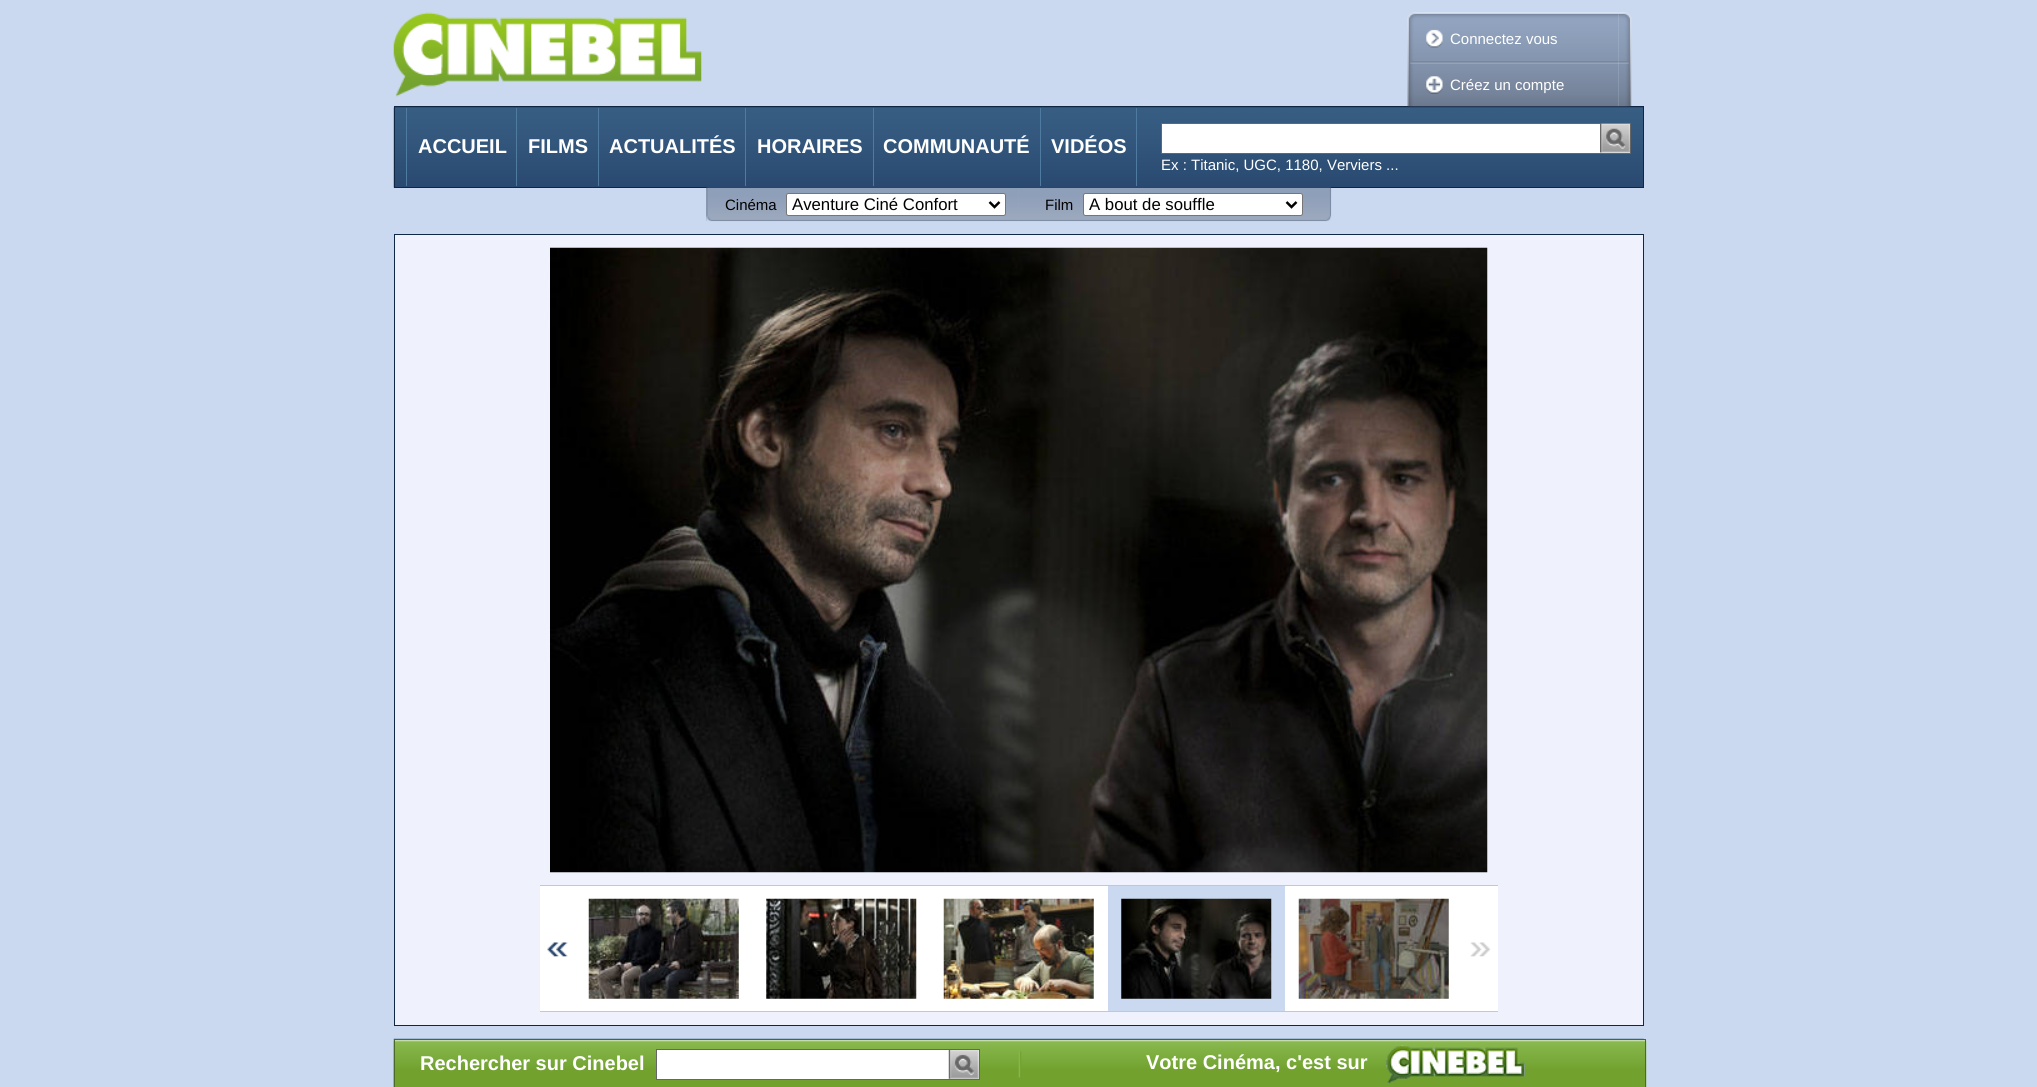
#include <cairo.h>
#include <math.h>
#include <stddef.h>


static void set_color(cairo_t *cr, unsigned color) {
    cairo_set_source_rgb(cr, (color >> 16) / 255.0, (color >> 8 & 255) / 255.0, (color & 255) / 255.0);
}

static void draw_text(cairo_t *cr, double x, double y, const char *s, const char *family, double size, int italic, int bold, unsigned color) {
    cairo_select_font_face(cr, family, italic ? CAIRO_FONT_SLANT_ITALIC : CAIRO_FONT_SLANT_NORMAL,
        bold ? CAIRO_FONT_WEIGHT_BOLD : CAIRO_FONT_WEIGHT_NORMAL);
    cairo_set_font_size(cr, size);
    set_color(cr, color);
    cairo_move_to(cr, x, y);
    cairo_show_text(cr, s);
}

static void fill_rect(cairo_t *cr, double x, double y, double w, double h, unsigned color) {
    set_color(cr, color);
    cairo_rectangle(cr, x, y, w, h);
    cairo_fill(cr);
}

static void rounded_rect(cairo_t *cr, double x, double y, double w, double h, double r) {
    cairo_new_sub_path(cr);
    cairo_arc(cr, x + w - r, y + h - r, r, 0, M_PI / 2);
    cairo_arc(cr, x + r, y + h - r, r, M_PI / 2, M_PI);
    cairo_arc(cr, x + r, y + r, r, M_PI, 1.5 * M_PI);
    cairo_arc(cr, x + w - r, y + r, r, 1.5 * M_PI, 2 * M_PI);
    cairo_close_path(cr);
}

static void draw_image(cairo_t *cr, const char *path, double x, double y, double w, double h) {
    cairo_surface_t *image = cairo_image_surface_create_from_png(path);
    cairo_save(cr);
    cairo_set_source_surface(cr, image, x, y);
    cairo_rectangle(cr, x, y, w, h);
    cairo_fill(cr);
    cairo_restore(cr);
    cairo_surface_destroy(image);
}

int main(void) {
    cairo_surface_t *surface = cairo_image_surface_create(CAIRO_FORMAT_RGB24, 2037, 1087);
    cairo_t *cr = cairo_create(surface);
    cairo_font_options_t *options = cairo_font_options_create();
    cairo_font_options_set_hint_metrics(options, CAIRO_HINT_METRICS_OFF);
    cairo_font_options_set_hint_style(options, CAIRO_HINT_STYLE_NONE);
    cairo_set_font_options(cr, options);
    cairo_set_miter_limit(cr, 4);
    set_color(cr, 0xCAD9EF);
    cairo_paint(cr);
    draw_image(cr, "assets/img1.png", 393, 12, 309, 85);
    fill_rect(cr, 395, 107, 1248, 1, 0x244269);
    draw_image(cr, "assets/img6.png", 393, 107, 1250, 81);
    cairo_rectangle(cr, 394.5, 106.5, 1249, 81);
    set_color(cr, 0x102645);
    cairo_set_line_width(cr, 1);
    cairo_stroke(cr);
    draw_image(cr, "assets/img2.png", 1407, 12, 212, 95);
    draw_image(cr, "assets/img3.png", 1426, 29, 17, 19);
    draw_text(cr, 1450, 44, "Connectez vous", "Liberation Sans", 15, 0, 0, 0xFFFFFF);
    draw_image(cr, "assets/img4.png", 1426, 76, 17, 18);
    draw_text(cr, 1450, 90, "Créez un compte", "Liberation Sans", 15, 0, 0, 0xFFFFFF);
    draw_image(cr, "assets/img5.png", 1618, 12, 14, 95);
    fill_rect(cr, 516, 108, 1, 78, 0x4F7BA0);
    fill_rect(cr, 406, 108, 1, 78, 0x4F7BA0);
    draw_text(cr, 418, 153, "ACCUEIL", "Liberation Sans", 20, 0, 1, 0xFFFFFF);
    fill_rect(cr, 598, 108, 1, 78, 0x4F7BA0);
    draw_text(cr, 528, 153, "FILMS", "Liberation Sans", 20, 0, 1, 0xFFFFFF);
    fill_rect(cr, 745, 108, 1, 78, 0x4F7BA0);
    draw_text(cr, 609, 153, "ACTUALITÉS", "Liberation Sans", 20, 0, 1, 0xFFFFFF);
    fill_rect(cr, 873, 108, 1, 78, 0x4F7BA0);
    draw_text(cr, 757, 153, "HORAIRES", "Liberation Sans", 20, 0, 1, 0xFFFFFF);
    fill_rect(cr, 1040, 108, 1, 78, 0x4F7BA0);
    draw_text(cr, 883, 153, "COMMUNAUTÉ", "Liberation Sans", 20, 0, 1, 0xFFFFFF);
    fill_rect(cr, 1136, 108, 1, 78, 0x4F7BA0);
    draw_text(cr, 1051, 153, "VIDÉOS", "Liberation Sans", 20, 0, 1, 0xFFFFFF);
    cairo_rectangle(cr, 1161.5, 123.5, 469, 30);
    cairo_fill_preserve(cr);
    set_color(cr, 0x666666);
    cairo_stroke(cr);
    draw_image(cr, "assets/img7.png", 1600, 123, 30, 30);
    draw_text(cr, 1161, 170, "Ex : Titanic, UGC, 1180, Verviers ...", "Liberation Sans", 15, 0, 0, 0xFFFFFF);
    fill_rect(cr, 706, 188, 313, 33, 0x9BA8BD);
    draw_image(cr, "assets/img8.png", 706, 187, 313, 35);
    draw_text(cr, 725, 210, "Cinéma", "Liberation Sans", 15, 0, 0, 0x000000);
    set_color(cr, 0xFFFFFF);
    rounded_rect(cr, 786.5, 193.5, 219, 22, 2);
    cairo_fill_preserve(cr);
    set_color(cr, 0x767676);
    cairo_stroke(cr);
    cairo_new_path(cr);
    cairo_move_to(cr, 989.5, 202);
    cairo_line_to(cr, 994.5, 207);
    cairo_line_to(cr, 999.5, 202);
    set_color(cr, 0x000000);
    cairo_set_line_width(cr, 2.5);
    cairo_stroke(cr);
    draw_text(cr, 792, 210, "Aventure Ciné Confort", "Liberation Sans", 16.75, 0, 0, 0x000000);
    draw_image(cr, "assets/img9.png", 1018, 187, 314, 35);
    draw_text(cr, 1045, 210, "Film", "Liberation Sans", 15, 0, 0, 0x000000);
    set_color(cr, 0xFFFFFF);
    rounded_rect(cr, 1083.5, 193.5, 219, 22, 2);
    cairo_fill_preserve(cr);
    set_color(cr, 0x767676);
    cairo_set_line_width(cr, 1);
    cairo_stroke(cr);
    cairo_new_path(cr);
    cairo_move_to(cr, 1286.5, 202);
    cairo_line_to(cr, 1291.5, 207);
    cairo_line_to(cr, 1296.5, 202);
    set_color(cr, 0x000000);
    cairo_set_line_width(cr, 2.5);
    cairo_stroke(cr);
    draw_text(cr, 1089, 210, "A bout de souffle", "Liberation Sans", 16.75, 0, 0, 0x000000);
    cairo_rectangle(cr, 394.5, 234.5, 1249, 791);
    set_color(cr, 0x102645);
    cairo_set_line_width(cr, 1);
    cairo_stroke(cr);
    fill_rect(cr, 395, 235, 1248, 790, 0xEFF2FD);
    draw_image(cr, "assets/img10.png", 550, 247, 938, 626);
    fill_rect(cr, 540, 886, 958, 125, 0xFFFFFF);
    fill_rect(cr, 540, 885, 958, 1, 0xC5C7CC);
    fill_rect(cr, 540, 1011, 958, 1, 0xC5C7CC);
    draw_image(cr, "assets/img11.png", 547, 941, 21, 17);
    draw_image(cr, "assets/img12.png", 588, 898, 151, 101);
    draw_image(cr, "assets/img13.png", 766, 898, 151, 101);
    draw_image(cr, "assets/img14.png", 943, 898, 151, 101);
    fill_rect(cr, 1108, 886, 177, 125, 0xCAD9EF);
    draw_image(cr, "assets/img15.png", 1121, 898, 151, 101);
    draw_image(cr, "assets/img16.png", 1298, 898, 151, 101);
    draw_image(cr, "assets/img17.png", 1470, 941, 21, 16);
    draw_image(cr, "assets/img18.png", 393, 1038, 1251, 49);
    draw_image(cr, "assets/img19.png", 393, 1040, 1254, 47);
    cairo_rectangle(cr, 394.5, 1039.5, 1251, 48);
    set_color(cr, 0x4A6A28);
    cairo_stroke(cr);
    draw_text(cr, 420, 1070, "Rechercher sur Cinebel", "Liberation Sans", 20, 0, 1, 0xFFFFFF);
    cairo_rectangle(cr, 656.5, 1049.5, 323, 30);
    cairo_fill_preserve(cr);
    set_color(cr, 0x666666);
    cairo_stroke(cr);
    draw_image(cr, "assets/img20.png", 948, 1050, 31, 29);
    draw_image(cr, "assets/img21.png", 1018, 1051, 4, 27);
    draw_text(cr, 1146, 1069, "Votre Cinéma, c'est sur", "Liberation Sans", 20, 0, 1, 0xFFFFFF);
    draw_image(cr, "assets/img22.png", 1386, 1045, 139, 39);
    cairo_surface_write_to_png(surface, "output.png");
    cairo_font_options_destroy(options);
    cairo_destroy(cr);
    cairo_surface_destroy(surface);
    return 0;
}
